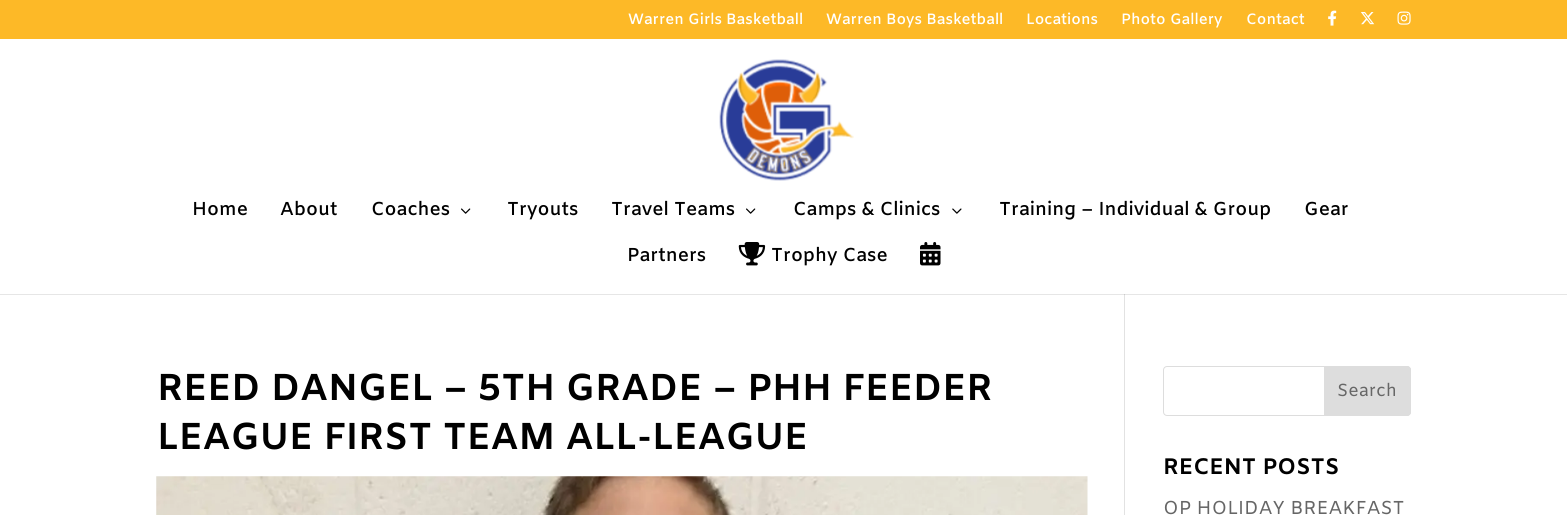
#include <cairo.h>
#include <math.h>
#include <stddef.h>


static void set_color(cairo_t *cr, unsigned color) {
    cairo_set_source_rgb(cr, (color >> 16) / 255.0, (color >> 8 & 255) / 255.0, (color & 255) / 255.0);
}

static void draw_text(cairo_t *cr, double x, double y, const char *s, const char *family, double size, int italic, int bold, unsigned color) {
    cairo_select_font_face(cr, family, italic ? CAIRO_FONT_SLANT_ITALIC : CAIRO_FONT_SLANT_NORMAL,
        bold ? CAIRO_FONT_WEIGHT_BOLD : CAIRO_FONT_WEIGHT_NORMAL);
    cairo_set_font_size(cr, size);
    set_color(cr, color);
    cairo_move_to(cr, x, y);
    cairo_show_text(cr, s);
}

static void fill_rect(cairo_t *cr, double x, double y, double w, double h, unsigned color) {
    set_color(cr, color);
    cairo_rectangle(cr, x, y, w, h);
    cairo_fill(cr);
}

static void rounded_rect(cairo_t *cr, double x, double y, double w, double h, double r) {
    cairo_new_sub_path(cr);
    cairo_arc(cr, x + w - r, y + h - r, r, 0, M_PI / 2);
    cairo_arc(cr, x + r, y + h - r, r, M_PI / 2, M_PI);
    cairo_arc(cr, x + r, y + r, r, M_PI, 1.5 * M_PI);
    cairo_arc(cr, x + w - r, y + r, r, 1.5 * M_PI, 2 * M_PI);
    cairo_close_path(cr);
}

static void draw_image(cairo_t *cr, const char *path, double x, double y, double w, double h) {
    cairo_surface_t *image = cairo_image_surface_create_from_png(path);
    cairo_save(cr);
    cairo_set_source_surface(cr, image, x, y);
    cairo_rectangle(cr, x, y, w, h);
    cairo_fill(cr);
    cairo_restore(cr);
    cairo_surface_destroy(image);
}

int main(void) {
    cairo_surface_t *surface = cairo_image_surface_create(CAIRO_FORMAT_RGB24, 1567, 515);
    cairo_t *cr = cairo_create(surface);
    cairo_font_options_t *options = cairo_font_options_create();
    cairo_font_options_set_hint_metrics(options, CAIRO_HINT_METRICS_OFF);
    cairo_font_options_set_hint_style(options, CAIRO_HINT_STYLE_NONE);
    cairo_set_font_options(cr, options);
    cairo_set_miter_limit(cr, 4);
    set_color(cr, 0xFDB927);
    cairo_paint(cr);
    draw_text(cr, 628, 24, "Warren Girls Basketball", "Amiko SemiBold", 15, 0, 0, 0xFFFFFF);
    draw_text(cr, 826, 24, "Warren Boys Basketball", "Amiko SemiBold", 15, 0, 0, 0xFFFFFF);
    draw_text(cr, 1026, 24, "Locations", "Amiko SemiBold", 15, 0, 0, 0xFFFFFF);
    draw_text(cr, 1121, 24, "Photo Gallery", "Amiko SemiBold", 15, 0, 0, 0xFFFFFF);
    draw_text(cr, 1246, 24, "Contact", "Amiko SemiBold", 15, 0, 0, 0xFFFFFF);
    draw_image(cr, "assets/img1.png", 1328, 10, 9, 16);
    draw_image(cr, "assets/img2.png", 1360, 12, 15, 13);
    draw_image(cr, "assets/img3.png", 1397, 11, 14, 14);
    fill_rect(cr, 0, 39, 1567, 476, 0xFFFFFF);
    fill_rect(cr, 1124, 294, 1, 221, 0xE2E2E2);
    cairo_set_source_rgba(cr, 0, 0, 0, 0.1);
    cairo_new_path(cr);
    cairo_move_to(cr, 0, 294);
    cairo_line_to(cr, 0, 295);
    cairo_line_to(cr, 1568, 295);
    cairo_line_to(cr, 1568, 40);
    cairo_line_to(cr, 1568, 294);
    cairo_close_path(cr);
    cairo_fill(cr);
    draw_image(cr, "assets/img4.png", 719, 59, 135, 122);
    draw_text(cr, 192, 215, "Home", "Amiko SemiBold", 18.75, 0, 0, 0x000000);
    draw_text(cr, 280, 215, "About", "Amiko SemiBold", 18.75, 0, 0, 0x000000);
    draw_text(cr, 371, 215, "Coaches", "Amiko SemiBold", 18.75, 0, 0, 0x000000);
    draw_image(cr, "assets/img5.png", 461, 208, 10, 6);
    draw_text(cr, 507, 215, "Tryouts", "Amiko SemiBold", 18.75, 0, 0, 0x000000);
    draw_text(cr, 611, 215, "Travel Teams", "Amiko SemiBold", 18.75, 0, 0, 0x000000);
    draw_image(cr, "assets/img5.png", 746, 208, 10, 6);
    draw_text(cr, 793, 215, "Camps & Clinics", "Amiko SemiBold", 18.75, 0, 0, 0x000000);
    draw_image(cr, "assets/img6.png", 952, 208, 10, 6);
    draw_text(cr, 999, 215, "Training – Individual & Group", "Amiko SemiBold", 18.75, 0, 0, 0x000000);
    draw_text(cr, 1304, 215, "Gear", "Amiko SemiBold", 18.75, 0, 0, 0x000000);
    draw_text(cr, 627, 261, "Partners", "Amiko SemiBold", 18.75, 0, 0, 0x000000);
    draw_image(cr, "assets/img7.png", 738, 242, 28, 24);
    draw_text(cr, 771, 261, "Trophy Case", "Amiko SemiBold", 18.75, 0, 0, 0x000000);
    draw_image(cr, "assets/img8.png", 920, 242, 21, 24);
    draw_text(cr, 157, 400, "REED DANGEL – 5TH GRADE – PHH FEEDER", "Amiko", 37.5, 0, 1, 0x000000);
    draw_text(cr, 157, 449, "LEAGUE FIRST TEAM ALL-LEAGUE", "Amiko", 37.5, 0, 1, 0x000000);
    draw_image(cr, "assets/img9.png", 156, 476, 932, 39);
    rounded_rect(cr, 1163.5, 366.5, 247, 49, 3.5);
    set_color(cr, 0xDDDDDD);
    cairo_set_line_width(cr, 1);
    cairo_stroke(cr);
    cairo_new_path(cr);
    cairo_move_to(cr, 1324.5, 366.5);
    cairo_line_to(cr, 1407, 366.5);
    cairo_curve_to(cr, 1409, 366.5, 1410.5, 368, 1410.5, 370);
    cairo_line_to(cr, 1410.5, 412);
    cairo_curve_to(cr, 1410.5, 414, 1409, 415.5, 1407, 415.5);
    cairo_line_to(cr, 1324.5, 415.5);
    cairo_close_path(cr);
    cairo_fill_preserve(cr);
    cairo_stroke(cr);
    draw_text(cr, 1337, 396, "Search", "Amiko", 17.5, 0, 0, 0x666666);
    draw_text(cr, 1163, 474, "RECENT POSTS", "Amiko", 22.5, 0, 1, 0x000000);
    draw_text(cr, 1163, 514, "OP HOLIDAY BREAKFAST", "Amiko", 18.75, 0, 0, 0x666666);
    cairo_surface_write_to_png(surface, "output.png");
    cairo_font_options_destroy(options);
    cairo_destroy(cr);
    cairo_surface_destroy(surface);
    return 0;
}
